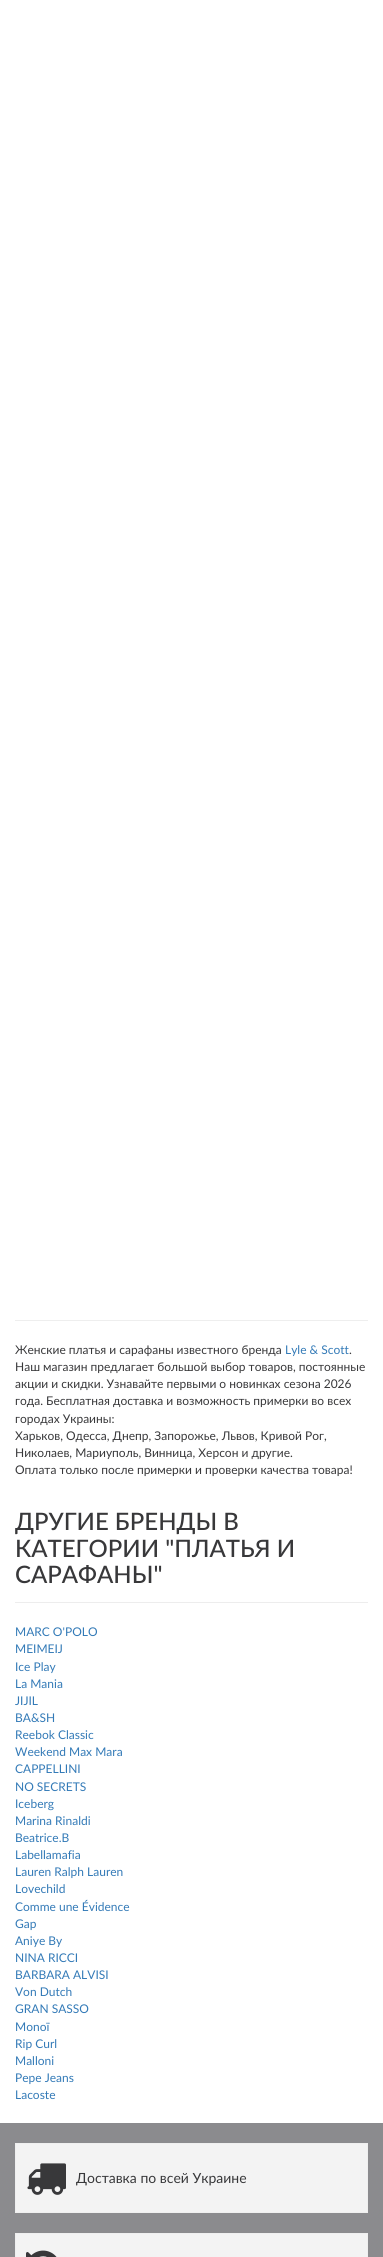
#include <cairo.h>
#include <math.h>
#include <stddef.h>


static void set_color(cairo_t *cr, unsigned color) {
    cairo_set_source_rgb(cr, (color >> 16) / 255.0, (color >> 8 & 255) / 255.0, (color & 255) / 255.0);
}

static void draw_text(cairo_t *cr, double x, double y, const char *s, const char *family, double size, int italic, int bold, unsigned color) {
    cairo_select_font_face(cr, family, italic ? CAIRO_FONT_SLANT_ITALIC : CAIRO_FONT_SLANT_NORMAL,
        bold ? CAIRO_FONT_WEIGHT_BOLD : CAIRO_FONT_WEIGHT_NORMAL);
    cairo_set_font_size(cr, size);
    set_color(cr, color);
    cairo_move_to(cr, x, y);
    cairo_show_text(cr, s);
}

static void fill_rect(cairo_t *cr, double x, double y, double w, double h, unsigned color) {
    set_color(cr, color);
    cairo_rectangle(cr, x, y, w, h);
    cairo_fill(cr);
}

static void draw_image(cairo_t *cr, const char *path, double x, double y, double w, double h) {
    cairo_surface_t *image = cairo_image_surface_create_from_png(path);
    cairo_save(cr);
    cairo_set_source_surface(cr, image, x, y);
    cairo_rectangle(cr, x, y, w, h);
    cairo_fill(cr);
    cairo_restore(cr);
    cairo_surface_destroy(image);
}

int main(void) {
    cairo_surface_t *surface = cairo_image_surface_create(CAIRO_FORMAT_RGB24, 383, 2257);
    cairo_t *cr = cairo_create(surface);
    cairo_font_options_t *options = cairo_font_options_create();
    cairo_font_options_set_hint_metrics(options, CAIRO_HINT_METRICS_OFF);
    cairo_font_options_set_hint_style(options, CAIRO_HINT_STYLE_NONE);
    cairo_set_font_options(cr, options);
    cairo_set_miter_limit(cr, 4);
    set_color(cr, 0xFFFFFF);
    cairo_paint(cr);
    fill_rect(cr, 15, 1320, 353, 1, 0xEEEEEE);
    draw_text(cr, 15, 1354, "Женские платья и сарафаны известного бренда", "Lato", 12, 0, 0, 0x38383A);
    draw_text(cr, 285, 1354, "Lyle & Scott", "Lato", 12, 0, 0, 0x337AB7);
    draw_text(cr, 349, 1354, ".", "Lato", 12, 0, 0, 0x38383A);
    draw_text(cr, 15, 1371, "Наш магазин предлагает большой выбор товаров, постоянные", "Lato", 12, 0, 0, 0x38383A);
    draw_text(cr, 15, 1388, "акции и скидки. Узнавайте первыми о новинках сезона 2026", "Lato", 12, 0, 0, 0x38383A);
    draw_text(cr, 15, 1405, "года. Бесплатная доставка и возможность примерки во всех", "Lato", 12, 0, 0, 0x38383A);
    draw_text(cr, 15, 1423, "городах Украины:", "Lato", 12, 0, 0, 0x38383A);
    draw_text(cr, 15, 1440, "Харьков, Одесса, Днепр, Запорожье, Львов, Кривой Рог,", "Lato", 12, 0, 0, 0x38383A);
    draw_text(cr, 15, 1457, "Николаев, Мариуполь, Винница, Херсон и другие.", "Lato", 12, 0, 0, 0x38383A);
    draw_text(cr, 15, 1474, "Оплата только после примерки и проверки качества товара!", "Lato", 12, 0, 0, 0x38383A);
    fill_rect(cr, 15, 1602, 353, 1, 0xEDEDED);
    draw_text(cr, 15, 1530, "ДРУГИЕ БРЕНДЫ В", "Lato Medium", 24, 0, 0, 0x38383A);
    draw_text(cr, 15, 1557, "КАТЕГОРИИ \"ПЛАТЬЯ И", "Lato Medium", 24, 0, 0, 0x38383A);
    draw_text(cr, 15, 1583, "САРАФАНЫ\"", "Lato Medium", 24, 0, 0, 0x38383A);
    draw_text(cr, 15, 1636, "MARC O'POLO", "Lato", 12, 0, 0, 0x337AB7);
    draw_text(cr, 15, 1653, "MEIMEIJ", "Lato", 12, 0, 0, 0x337AB7);
    draw_text(cr, 15, 1671, "Ice Play", "Lato", 12, 0, 0, 0x337AB7);
    draw_text(cr, 15, 1688, "La Mania", "Lato", 12, 0, 0, 0x337AB7);
    draw_text(cr, 15, 1705, "JIJIL", "Lato", 12, 0, 0, 0x337AB7);
    draw_text(cr, 15, 1722, "BA&SH", "Lato", 12, 0, 0, 0x337AB7);
    draw_text(cr, 15, 1739, "Reebok Classic", "Lato", 12, 0, 0, 0x337AB7);
    draw_text(cr, 15, 1756, "Weekend Max Mara", "Lato", 12, 0, 0, 0x337AB7);
    draw_text(cr, 15, 1773, "CAPPELLINI", "Lato", 12, 0, 0, 0x337AB7);
    draw_text(cr, 15, 1791, "NO SECRETS", "Lato", 12, 0, 0, 0x337AB7);
    draw_text(cr, 15, 1808, "Iceberg", "Lato", 12, 0, 0, 0x337AB7);
    draw_text(cr, 15, 1825, "Marina Rinaldi", "Lato", 12, 0, 0, 0x337AB7);
    draw_text(cr, 15, 1842, "Beatrice.B", "Lato", 12, 0, 0, 0x337AB7);
    draw_text(cr, 15, 1859, "Labellamafia", "Lato", 12, 0, 0, 0x337AB7);
    draw_text(cr, 15, 1876, "Lauren Ralph Lauren", "Lato", 12, 0, 0, 0x337AB7);
    draw_text(cr, 15, 1893, "Lovechild", "Lato", 12, 0, 0, 0x337AB7);
    draw_text(cr, 15, 1911, "Comme une Évidence", "Lato", 12, 0, 0, 0x337AB7);
    draw_text(cr, 15, 1928, "Gap", "Lato", 12, 0, 0, 0x337AB7);
    draw_text(cr, 15, 1945, "Aniye By", "Lato", 12, 0, 0, 0x337AB7);
    draw_text(cr, 15, 1962, "NINA RICCI", "Lato", 12, 0, 0, 0x337AB7);
    draw_text(cr, 15, 1979, "BARBARA ALVISI", "Lato", 12, 0, 0, 0x337AB7);
    draw_text(cr, 15, 1996, "Von Dutch", "Lato", 12, 0, 0, 0x337AB7);
    draw_text(cr, 15, 2013, "GRAN SASSO", "Lato", 12, 0, 0, 0x337AB7);
    draw_text(cr, 15, 2031, "Monoї", "Lato", 12, 0, 0, 0x337AB7);
    draw_text(cr, 15, 2048, "Rip Curl", "Lato", 12, 0, 0, 0x337AB7);
    draw_text(cr, 15, 2065, "Malloni", "Lato", 12, 0, 0, 0x337AB7);
    draw_text(cr, 15, 2082, "Pepe Jeans", "Lato", 12, 0, 0, 0x337AB7);
    draw_text(cr, 15, 2099, "Lacoste", "Lato", 12, 0, 0, 0x337AB7);
    fill_rect(cr, 0, 2123, 383, 134, 0x8B8B8E);
    set_color(cr, 0xF3F3F3);
    cairo_rectangle(cr, 15.5, 2143.5, 352, 69);
    cairo_fill_preserve(cr);
    set_color(cr, 0xEFEFEF);
    cairo_set_line_width(cr, 1);
    cairo_stroke(cr);
    draw_image(cr, "assets/img1.png", 27, 2163, 39, 32);
    draw_text(cr, 76, 2183, "Доставка по всей Украине", "Lato", 14, 0, 0, 0x38383A);
    set_color(cr, 0xF3F3F3);
    cairo_rectangle(cr, 15.5, 2233.5, 352, 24);
    cairo_fill_preserve(cr);
    set_color(cr, 0xEFEFEF);
    cairo_stroke(cr);
    draw_image(cr, "assets/img2.png", 26, 2250, 31, 7);
    cairo_surface_write_to_png(surface, "output.png");
    cairo_font_options_destroy(options);
    cairo_destroy(cr);
    cairo_surface_destroy(surface);
    return 0;
}
